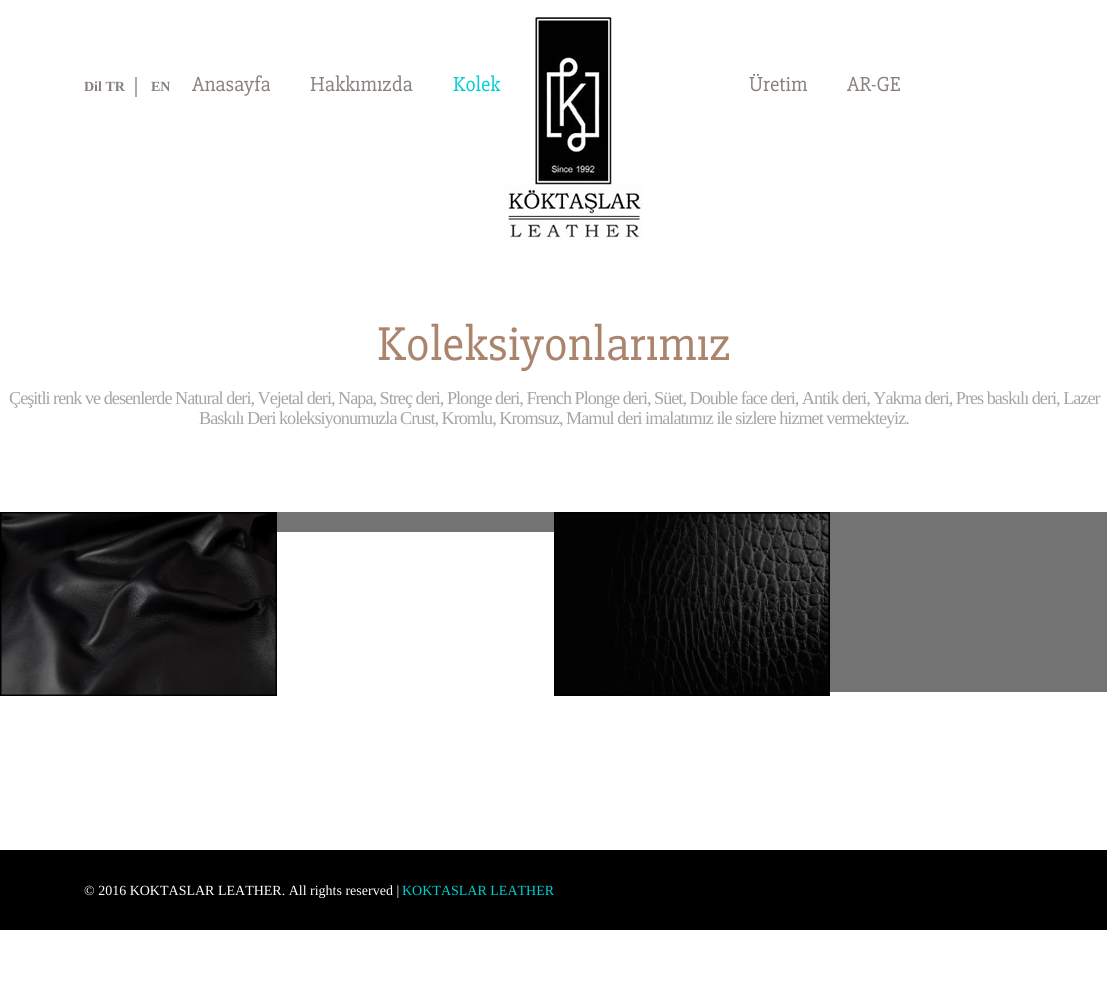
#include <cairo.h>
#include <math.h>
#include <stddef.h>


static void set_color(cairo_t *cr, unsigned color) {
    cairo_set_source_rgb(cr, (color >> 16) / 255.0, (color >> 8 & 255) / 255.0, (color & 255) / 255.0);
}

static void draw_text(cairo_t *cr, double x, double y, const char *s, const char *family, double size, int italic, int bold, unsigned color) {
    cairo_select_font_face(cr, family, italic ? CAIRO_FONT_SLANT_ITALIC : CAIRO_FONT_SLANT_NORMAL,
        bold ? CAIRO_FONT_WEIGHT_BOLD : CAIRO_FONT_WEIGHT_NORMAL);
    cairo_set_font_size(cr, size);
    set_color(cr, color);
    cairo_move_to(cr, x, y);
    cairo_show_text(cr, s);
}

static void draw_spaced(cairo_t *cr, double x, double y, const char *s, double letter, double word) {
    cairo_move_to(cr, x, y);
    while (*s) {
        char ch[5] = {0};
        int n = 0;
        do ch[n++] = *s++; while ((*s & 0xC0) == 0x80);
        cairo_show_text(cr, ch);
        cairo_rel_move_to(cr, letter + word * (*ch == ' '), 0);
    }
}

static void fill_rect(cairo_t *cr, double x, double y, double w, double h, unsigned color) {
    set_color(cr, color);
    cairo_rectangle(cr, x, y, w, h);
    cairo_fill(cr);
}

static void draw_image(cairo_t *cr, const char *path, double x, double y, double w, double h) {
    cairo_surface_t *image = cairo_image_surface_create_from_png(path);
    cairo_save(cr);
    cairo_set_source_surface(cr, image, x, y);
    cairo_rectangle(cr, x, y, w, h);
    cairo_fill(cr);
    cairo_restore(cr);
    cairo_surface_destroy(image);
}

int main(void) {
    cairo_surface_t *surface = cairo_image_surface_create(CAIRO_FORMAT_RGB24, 1107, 1004);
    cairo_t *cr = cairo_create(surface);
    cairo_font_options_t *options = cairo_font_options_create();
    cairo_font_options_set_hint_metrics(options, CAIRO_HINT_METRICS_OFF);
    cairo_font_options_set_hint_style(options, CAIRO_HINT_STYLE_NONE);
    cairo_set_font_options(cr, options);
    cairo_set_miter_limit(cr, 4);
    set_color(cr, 0xFFFFFF);
    cairo_paint(cr);
    draw_image(cr, "assets/img1.png", 504, 17, 139, 223);
    fill_rect(cr, 135, 77, 2, 20, 0xAAAAAA);
    draw_text(cr, 84, 91, "Dil TR", "Liberation Serif", 14, 0, 1, 0x87807C);
    draw_text(cr, 151, 91, "EN", "Liberation Serif", 14, 0, 1, 0x87807C);
    draw_text(cr, 192, 91, "Anasayfa", "Slabo 27px", 21, 0, 0, 0x87807C);
    draw_text(cr, 310, 91, "Hakkımızda", "Slabo 27px", 21, 0, 0, 0x87807C);
    draw_text(cr, 453, 91, "Kolek", "Slabo 27px", 21, 0, 0, 0x00CED1);
    draw_text(cr, 749, 91, "Üretim", "Slabo 27px", 21, 0, 0, 0x87807C);
    draw_text(cr, 847, 91, "AR-GE", "Slabo 27px", 21, 0, 0, 0x87807C);
    draw_text(cr, 377, 360, "Koleksiyonlarımız", "Slabo 27px", 49, 0, 0, 0xAA846D);
    cairo_select_font_face(cr, "Liberation Serif", CAIRO_FONT_SLANT_NORMAL, CAIRO_FONT_WEIGHT_NORMAL);
    cairo_set_font_size(cr, 18.2);
    set_color(cr, 0xA9A4A1);
    draw_spaced(cr, 9, 404, "Çeşitli renk ve desenlerde Natural deri, Vejetal deri, Napa, Streç deri, Plonge deri, French Plonge deri, Süet, Double face deri, Antik deri, Yakma deri, Pres baskılı deri, Lazer", -1, 0);
    draw_spaced(cr, 199, 424, "Baskılı Deri koleksiyonumuzla Crust, Kromlu, Kromsuz, Mamul deri imalatımız ile sizlere hizmet vermekteyiz.", -1, 0);
    draw_image(cr, "assets/img2.png", 0, 512, 277, 184);
    fill_rect(cr, 277, 512, 277, 20, 0x737373);
    draw_image(cr, "assets/img3.png", 554, 512, 276, 184);
    fill_rect(cr, 830, 512, 277, 180, 0x737373);
    fill_rect(cr, 0, 850, 1107, 80, 0x000000);
    draw_text(cr, 84, 895, "© 2016 KOKTASLAR LEATHER. All rights reserved |", "Liberation Serif", 14, 0, 0, 0xFFFFFF);
    draw_text(cr, 402, 895, "KOKTASLAR LEATHER", "Liberation Serif", 14, 0, 0, 0x00CED1);
    cairo_surface_write_to_png(surface, "output.png");
    cairo_font_options_destroy(options);
    cairo_destroy(cr);
    cairo_surface_destroy(surface);
    return 0;
}
